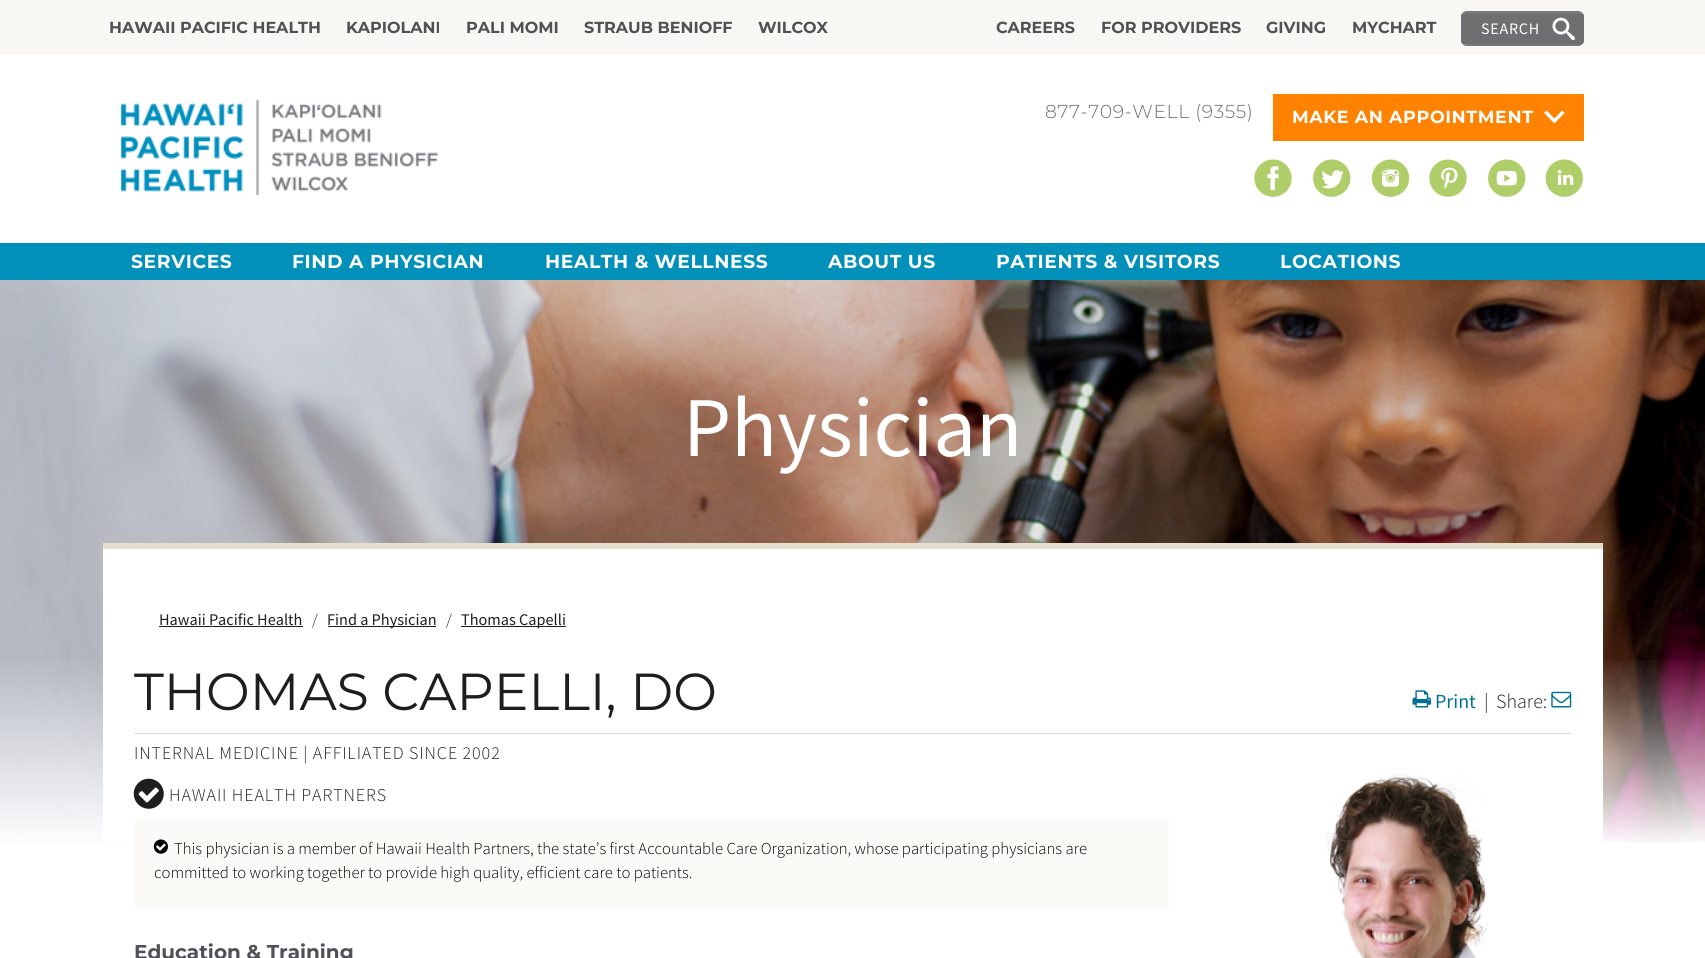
#include <cairo.h>
#include <math.h>
#include <stddef.h>


static void set_color(cairo_t *cr, unsigned color) {
    cairo_set_source_rgb(cr, (color >> 16) / 255.0, (color >> 8 & 255) / 255.0, (color & 255) / 255.0);
}

static void draw_text(cairo_t *cr, double x, double y, const char *s, const char *family, double size, int italic, int bold, unsigned color) {
    cairo_select_font_face(cr, family, italic ? CAIRO_FONT_SLANT_ITALIC : CAIRO_FONT_SLANT_NORMAL,
        bold ? CAIRO_FONT_WEIGHT_BOLD : CAIRO_FONT_WEIGHT_NORMAL);
    cairo_set_font_size(cr, size);
    set_color(cr, color);
    cairo_move_to(cr, x, y);
    cairo_show_text(cr, s);
}

static void draw_spaced(cairo_t *cr, double x, double y, const char *s, double letter, double word) {
    cairo_move_to(cr, x, y);
    while (*s) {
        char ch[5] = {0};
        int n = 0;
        do ch[n++] = *s++; while ((*s & 0xC0) == 0x80);
        cairo_show_text(cr, ch);
        cairo_rel_move_to(cr, letter + word * (*ch == ' '), 0);
    }
}

static void fill_rect(cairo_t *cr, double x, double y, double w, double h, unsigned color) {
    set_color(cr, color);
    cairo_rectangle(cr, x, y, w, h);
    cairo_fill(cr);
}

static void rounded_rect(cairo_t *cr, double x, double y, double w, double h, double r) {
    cairo_new_sub_path(cr);
    cairo_arc(cr, x + w - r, y + h - r, r, 0, M_PI / 2);
    cairo_arc(cr, x + r, y + h - r, r, M_PI / 2, M_PI);
    cairo_arc(cr, x + r, y + r, r, M_PI, 1.5 * M_PI);
    cairo_arc(cr, x + w - r, y + r, r, 1.5 * M_PI, 2 * M_PI);
    cairo_close_path(cr);
}

static void draw_image(cairo_t *cr, const char *path, double x, double y, double w, double h) {
    cairo_surface_t *image = cairo_image_surface_create_from_png(path);
    cairo_save(cr);
    cairo_set_source_surface(cr, image, x, y);
    cairo_rectangle(cr, x, y, w, h);
    cairo_fill(cr);
    cairo_restore(cr);
    cairo_surface_destroy(image);
}

int main(void) {
    cairo_surface_t *surface = cairo_image_surface_create(CAIRO_FORMAT_RGB24, 1705, 958);
    cairo_t *cr = cairo_create(surface);
    cairo_font_options_t *options = cairo_font_options_create();
    cairo_font_options_set_hint_metrics(options, CAIRO_HINT_METRICS_OFF);
    cairo_font_options_set_hint_style(options, CAIRO_HINT_STYLE_NONE);
    cairo_set_font_options(cr, options);
    cairo_set_miter_limit(cr, 4);
    cairo_pattern_t *gradient;
    set_color(cr, 0xFFFFFF);
    cairo_paint(cr);
    fill_rect(cr, 0, 0, 1705, 55, 0xF9F7F3);
    draw_text(cr, 109, 33, "HAWAII PACIFIC HEALTH", "Montserrat", 16, 0, 1, 0x505056);
    draw_text(cr, 346, 33, "KAPIOLANI", "Montserrat", 16, 0, 1, 0x505056);
    draw_text(cr, 466, 33, "PALI MOMI", "Montserrat", 16, 0, 1, 0x505056);
    draw_text(cr, 584, 33, "STRAUB BENIOFF", "Montserrat", 16, 0, 1, 0x505056);
    draw_text(cr, 758, 33, "WILCOX", "Montserrat", 16, 0, 1, 0x505056);
    draw_text(cr, 996, 33, "CAREERS", "Montserrat", 16, 0, 1, 0x505056);
    draw_text(cr, 1101, 33, "FOR PROVIDERS", "Montserrat", 16, 0, 1, 0x505056);
    draw_text(cr, 1266, 33, "GIVING", "Montserrat", 16, 0, 1, 0x505056);
    draw_text(cr, 1352, 33, "MYCHART", "Montserrat", 16, 0, 1, 0x505056);
    set_color(cr, 0x78787A);
    rounded_rect(cr, 1461, 11, 123, 35, 6);
    cairo_fill(cr);
    cairo_save(cr);
    rounded_rect(cr, 1461, 11, 123, 35, 6);
    cairo_clip(cr);
    fill_rect(cr, 1461, 14, 123, 30, 0x6F6F71);
    cairo_restore(cr);
    cairo_select_font_face(cr, "Source Sans Pro", CAIRO_FONT_SLANT_NORMAL, CAIRO_FONT_WEIGHT_NORMAL);
    set_color(cr, 0xFFFFFF);
    draw_spaced(cr, 1481, 34, "SEARCH", 0.75, 0);
    draw_image(cr, "assets/img1.png", 1552, 17, 23, 24);
    draw_image(cr, "assets/img2.png", 121, 99, 317, 97);
    cairo_select_font_face(cr, "Montserrat Light", CAIRO_FONT_SLANT_NORMAL, CAIRO_FONT_WEIGHT_NORMAL);
    cairo_set_font_size(cr, 18.75);
    set_color(cr, 0x6F6F71);
    draw_spaced(cr, 1045, 118, "877-709-WELL (9355)", 0.6, 0);
    fill_rect(cr, 1273, 94, 311, 47, 0xFF8200);
    draw_image(cr, "assets/img3.png", 1544, 110, 21, 14);
    cairo_select_font_face(cr, "Montserrat", CAIRO_FONT_SLANT_NORMAL, CAIRO_FONT_WEIGHT_BOLD);
    cairo_set_font_size(cr, 17.5);
    set_color(cr, 0xFFFFFF);
    draw_spaced(cr, 1292, 123, "MAKE AN APPOINTMENT", 0.6, 0);
    draw_image(cr, "assets/img4.png", 1254, 159, 38, 38);
    draw_image(cr, "assets/img5.png", 1313, 159, 38, 38);
    draw_image(cr, "assets/img6.png", 1371, 159, 39, 38);
    draw_image(cr, "assets/img7.png", 1429, 159, 38, 38);
    draw_image(cr, "assets/img8.png", 1488, 159, 38, 38);
    draw_image(cr, "assets/img9.png", 1545, 159, 38, 38);
    fill_rect(cr, 0, 243, 1705, 37, 0x0090BA);
    cairo_set_font_size(cr, 18.75);
    set_color(cr, 0xFFFFFF);
    draw_spaced(cr, 131, 268, "SERVICES", 0.6, 0);
    draw_spaced(cr, 292, 268, "FIND A PHYSICIAN", 0.6, 0);
    draw_spaced(cr, 545, 268, "HEALTH & WELLNESS", 0.6, 0);
    draw_spaced(cr, 828, 268, "ABOUT US", 0.6, 0);
    draw_spaced(cr, 996, 268, "PATIENTS & VISITORS", 0.6, 0);
    draw_spaced(cr, 1280, 268, "LOCATIONS", 0.6, 0);
    draw_image(cr, "assets/img10.png", 0, 280, 1705, 568);
    draw_text(cr, 683, 456, "Physician", "Source Sans Pro", 85, 0, 0, 0xFFFFFF);
    gradient = cairo_pattern_create_linear(853, 224, 853, 849);
    cairo_pattern_add_color_stop_rgba(gradient, 0.69, 1, 1, 1, 0);
    cairo_pattern_add_color_stop_rgba(gradient, 0.7, 1, 1, 1, 0.03);
    cairo_pattern_add_color_stop_rgba(gradient, 1, 1, 1, 1, 1);
    cairo_set_source(cr, gradient);
    cairo_pattern_destroy(gradient);
    cairo_rectangle(cr, 0, 660, 1705, 188);
    cairo_fill(cr);
    fill_rect(cr, 103, 549, 1500, 294, 0xFFFFFF);
    fill_rect(cr, 103, 543, 1500, 6, 0xE6DFCD);
    draw_text(cr, 159, 625, "Hawaii Pacific Health", "Source Sans Pro", 16.25, 0, 0, 0x1E1E20);
    fill_rect(cr, 159, 626, 144, 1, 0x1E1E20);
    draw_text(cr, 312, 625, "/", "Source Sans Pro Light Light", 16.25, 0, 0, 0x1E1E20);
    fill_rect(cr, 328, 626, 108, 1, 0x1E1E20);
    draw_text(cr, 327, 625, "Find a Physician", "Source Sans Pro", 16.25, 0, 0, 0x1E1E20);
    draw_text(cr, 446, 625, "/", "Source Sans Pro Light Light", 16.25, 0, 0, 0x1E1E20);
    fill_rect(cr, 461, 626, 105, 1, 0x1E1E20);
    draw_text(cr, 461, 625, "Thomas Capelli", "Source Sans Pro", 16.25, 0, 0, 0x1E1E20);
    draw_text(cr, 134, 710, "THOMAS CAPELLI, DO", "Montserrat", 52, 0, 0, 0x1E1E20);
    draw_image(cr, "assets/img11.png", 1412, 690, 20, 18);
    draw_text(cr, 1435, 708, "Print", "Source Sans Pro", 20, 0, 0, 0x007194);
    draw_text(cr, 1484, 708, "|", "Source Sans Pro Light Light", 20, 0, 0, 0x1E1E20);
    draw_text(cr, 1496, 708, "Share:", "Source Sans Pro Light Light", 20, 0, 0, 0x1E1E20);
    draw_image(cr, "assets/img12.png", 1551, 691, 21, 17);
    fill_rect(cr, 134, 733, 1437, 1, 0xDDDDDD);
    cairo_set_font_size(cr, 18);
    set_color(cr, 0x1E1E20);
    draw_spaced(cr, 134, 759, "INTERNAL MEDICINE | AFFILIATED SINCE 2002", 0.9, 0);
    draw_image(cr, "assets/img13.png", 133, 778, 31, 31);
    draw_spaced(cr, 169, 801, "HAWAII HEALTH PARTNERS", 0.9, 0);
    fill_rect(cr, 134, 818, 1035, 90, 0xFBFAF7);
    draw_image(cr, "assets/img14.png", 153, 839, 15, 15);
    draw_text(cr, 174, 854, "This physician is a member of Hawaii Health Partners, the state’s first Accountable Care Organization, whose participating physicians are", "Source Sans Pro Light Light", 16.67, 0, 0, 0x000000);
    draw_text(cr, 154, 878, "committed to working together to provide high quality, efficient care to patients.", "Source Sans Pro Light Light", 16.67, 0, 0, 0x000000);
    draw_text(cr, 134, 959, "Education & Training", "Montserrat", 20, 0, 1, 0x505056);
    draw_image(cr, "assets/img15.png", 1325, 773, 163, 185);
    cairo_surface_write_to_png(surface, "output.png");
    cairo_font_options_destroy(options);
    cairo_destroy(cr);
    cairo_surface_destroy(surface);
    return 0;
}
